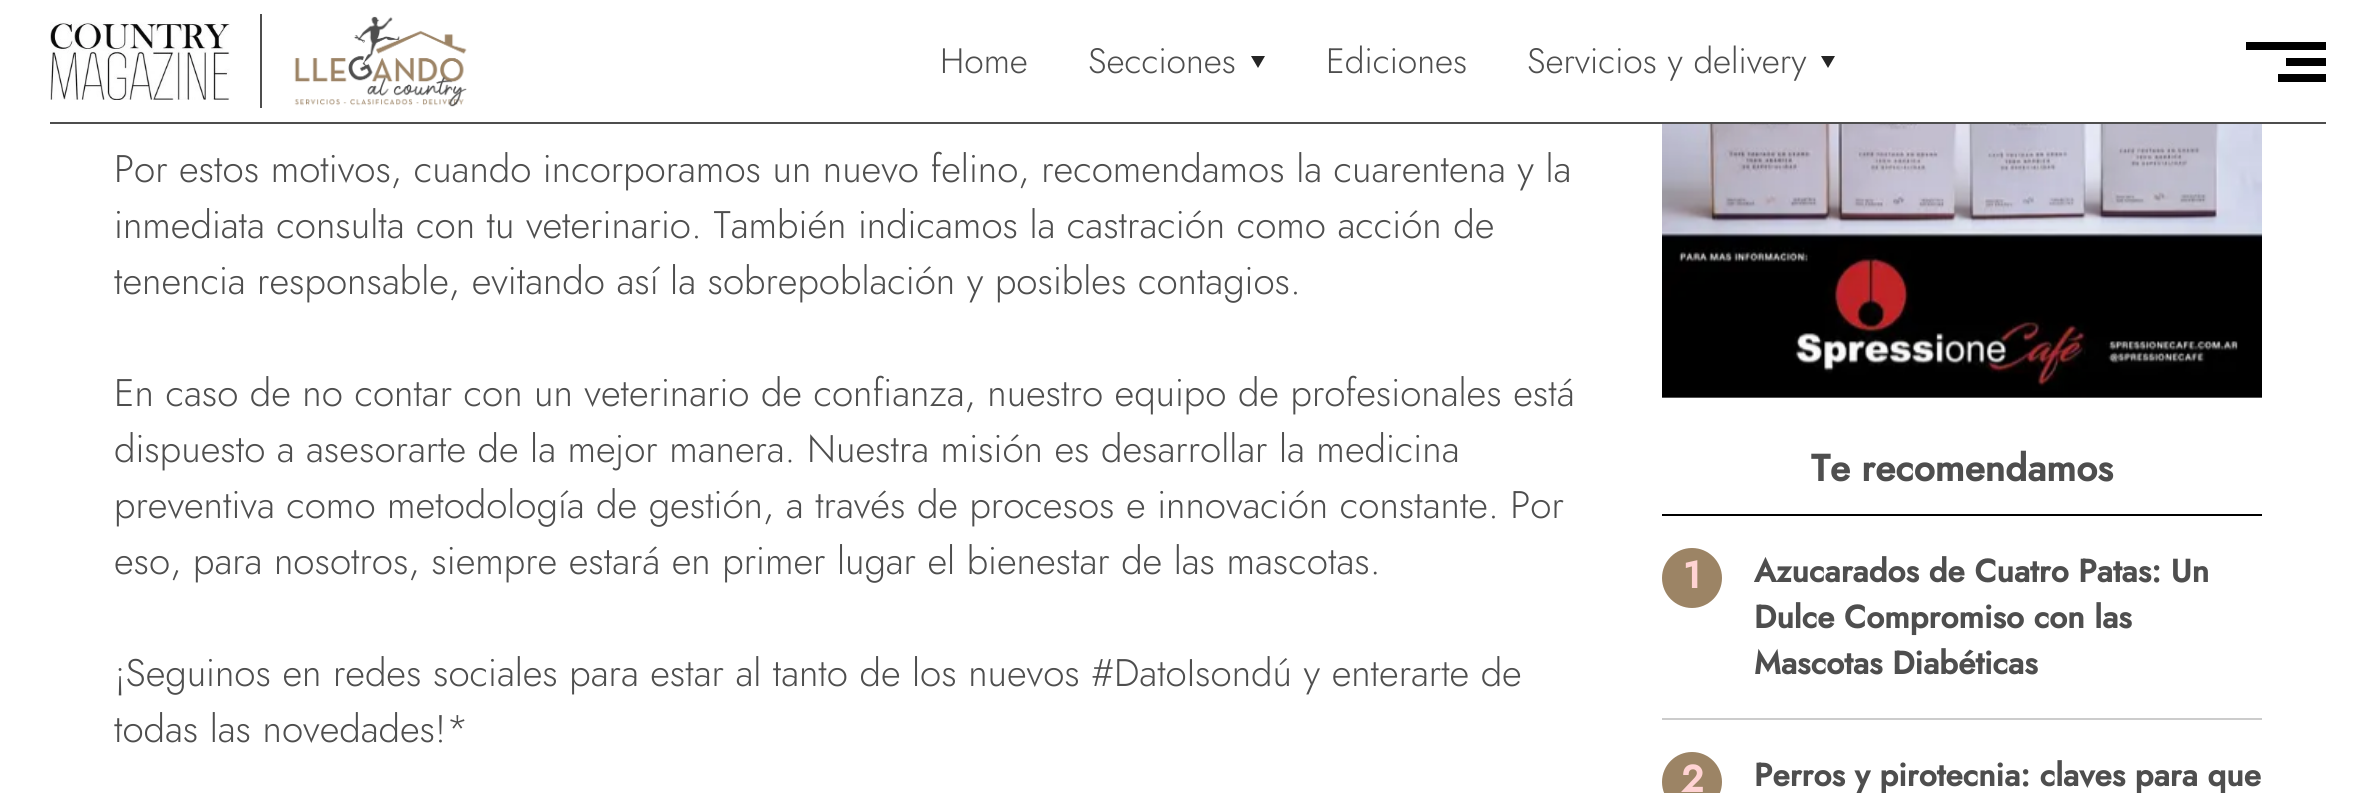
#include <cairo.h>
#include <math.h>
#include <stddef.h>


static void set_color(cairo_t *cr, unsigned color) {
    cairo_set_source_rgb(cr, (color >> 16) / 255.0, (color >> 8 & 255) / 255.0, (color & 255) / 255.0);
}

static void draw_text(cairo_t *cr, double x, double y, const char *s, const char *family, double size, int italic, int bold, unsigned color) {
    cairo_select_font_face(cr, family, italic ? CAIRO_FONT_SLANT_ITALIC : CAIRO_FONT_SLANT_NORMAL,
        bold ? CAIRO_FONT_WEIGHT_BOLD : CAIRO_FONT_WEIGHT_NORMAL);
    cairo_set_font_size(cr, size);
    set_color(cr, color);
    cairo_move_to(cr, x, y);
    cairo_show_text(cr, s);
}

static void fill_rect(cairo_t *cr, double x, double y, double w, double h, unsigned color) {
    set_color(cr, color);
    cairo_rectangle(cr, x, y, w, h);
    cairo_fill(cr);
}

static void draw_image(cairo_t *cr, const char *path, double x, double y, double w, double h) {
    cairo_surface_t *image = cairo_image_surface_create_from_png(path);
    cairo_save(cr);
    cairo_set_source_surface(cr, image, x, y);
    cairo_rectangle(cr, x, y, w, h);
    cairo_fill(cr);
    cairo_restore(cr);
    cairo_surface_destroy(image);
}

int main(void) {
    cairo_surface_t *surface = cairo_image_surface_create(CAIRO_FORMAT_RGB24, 2376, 793);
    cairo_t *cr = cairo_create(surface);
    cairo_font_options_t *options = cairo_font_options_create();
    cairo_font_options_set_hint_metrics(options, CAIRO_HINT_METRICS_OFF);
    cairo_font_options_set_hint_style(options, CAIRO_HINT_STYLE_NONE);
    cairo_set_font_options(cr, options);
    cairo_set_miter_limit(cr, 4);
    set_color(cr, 0xFFFFFF);
    cairo_paint(cr);
    fill_rect(cr, 50, 122, 2276, 2, 0x4E4E4E);
    draw_image(cr, "assets/img1.png", 50, 22, 180, 78);
    fill_rect(cr, 260, 14, 2, 94, 0x4E4E4E);
    draw_image(cr, "assets/img2.png", 294, 16, 173, 91);
    draw_text(cr, 940, 73, "Home", "Jost Light", 35.25, 0, 0, 0x4E4E4E);
    draw_text(cr, 1088, 73, "Secciones", "Jost Light", 35.25, 0, 0, 0x4E4E4E);
    set_color(cr, 0x252525);
    cairo_new_path(cr);
    cairo_move_to(cr, 1258, 68);
    cairo_line_to(cr, 1251, 56);
    cairo_line_to(cr, 1265, 56);
    cairo_close_path(cr);
    cairo_fill(cr);
    draw_text(cr, 1326, 73, "Ediciones", "Jost Light", 35.25, 0, 0, 0x4E4E4E);
    draw_text(cr, 1527, 73, "Servicios y delivery", "Jost Light", 35.25, 0, 0, 0x4E4E4E);
    set_color(cr, 0x252525);
    cairo_new_path(cr);
    cairo_move_to(cr, 1828, 68);
    cairo_line_to(cr, 1821, 56);
    cairo_line_to(cr, 1835, 56);
    cairo_close_path(cr);
    cairo_fill(cr);
    fill_rect(cr, 2246, 42, 80, 8, 0x000000);
    fill_rect(cr, 2286, 58, 40, 8, 0x000000);
    fill_rect(cr, 2278, 74, 48, 8, 0x000000);
    draw_text(cr, 114, 182, "Por estos motivos, cuando incorporamos un nuevo felino, recomendamos la cuarentena y la", "Jost Light", 38.4, 0, 0, 0x4E4E4E);
    draw_text(cr, 114, 238, "inmediata consulta con tu veterinario. También indicamos la castración como acción de", "Jost Light", 38.4, 0, 0, 0x4E4E4E);
    draw_text(cr, 114, 294, "tenencia responsable, evitando así la sobrepoblación y posibles contagios.", "Jost Light", 38.4, 0, 0, 0x4E4E4E);
    draw_text(cr, 114, 406, "En caso de no contar con un veterinario de confianza, nuestro equipo de profesionales está", "Jost Light", 38.4, 0, 0, 0x4E4E4E);
    draw_text(cr, 114, 462, "dispuesto a asesorarte de la mejor manera. Nuestra misión es desarrollar la medicina", "Jost Light", 38.4, 0, 0, 0x4E4E4E);
    draw_text(cr, 114, 518, "preventiva como metodología de gestión, a través de procesos e innovación constante. Por", "Jost Light", 38.4, 0, 0, 0x4E4E4E);
    draw_text(cr, 114, 574, "eso, para nosotros, siempre estará en primer lugar el bienestar de las mascotas.", "Jost Light", 38.4, 0, 0, 0x4E4E4E);
    draw_text(cr, 114, 686, "¡Seguinos en redes sociales para estar al tanto de los nuevos #DatoIsondú y enterarte de", "Jost Light", 38.4, 0, 0, 0x4E4E4E);
    draw_text(cr, 114, 742, "todas las novedades!*", "Jost Light", 38.4, 0, 0, 0x4E4E4E);
    draw_image(cr, "assets/img3.png", 1662, 124, 600, 274);
    fill_rect(cr, 1662, 514, 600, 2, 0x000000);
    draw_text(cr, 1811, 481, "Te recomendamos", "Jost", 37.5, 0, 1, 0x4E4E4E);
    fill_rect(cr, 1662, 718, 600, 2, 0xCCCCCC);
    set_color(cr, 0x9C8465);
    cairo_new_path(cr);
    cairo_arc(cr, 1692, 578, 30, 0, 2 * M_PI);
    cairo_fill(cr);
    draw_text(cr, 1683, 588, "1", "Jost", 37.5, 0, 1, 0xFFD3D3);
    draw_text(cr, 1754, 582, "Azucarados de Cuatro Patas: Un", "Jost", 32, 0, 1, 0x4E4E4E);
    draw_text(cr, 1754, 628, "Dulce Compromiso con las", "Jost", 32, 0, 1, 0x4E4E4E);
    draw_text(cr, 1754, 674, "Mascotas Diabéticas", "Jost", 32, 0, 1, 0x4E4E4E);
    set_color(cr, 0x9C8465);
    cairo_new_path(cr);
    cairo_arc(cr, 1692, 782, 30, 0, 2 * M_PI);
    cairo_fill(cr);
    draw_text(cr, 1681, 792, "2", "Jost", 37.5, 0, 1, 0xFFD3D3);
    draw_text(cr, 1754, 786, "Perros y pirotecnia: claves para que", "Jost", 32, 0, 1, 0x4E4E4E);
    cairo_surface_write_to_png(surface, "output.png");
    cairo_font_options_destroy(options);
    cairo_destroy(cr);
    cairo_surface_destroy(surface);
    return 0;
}
